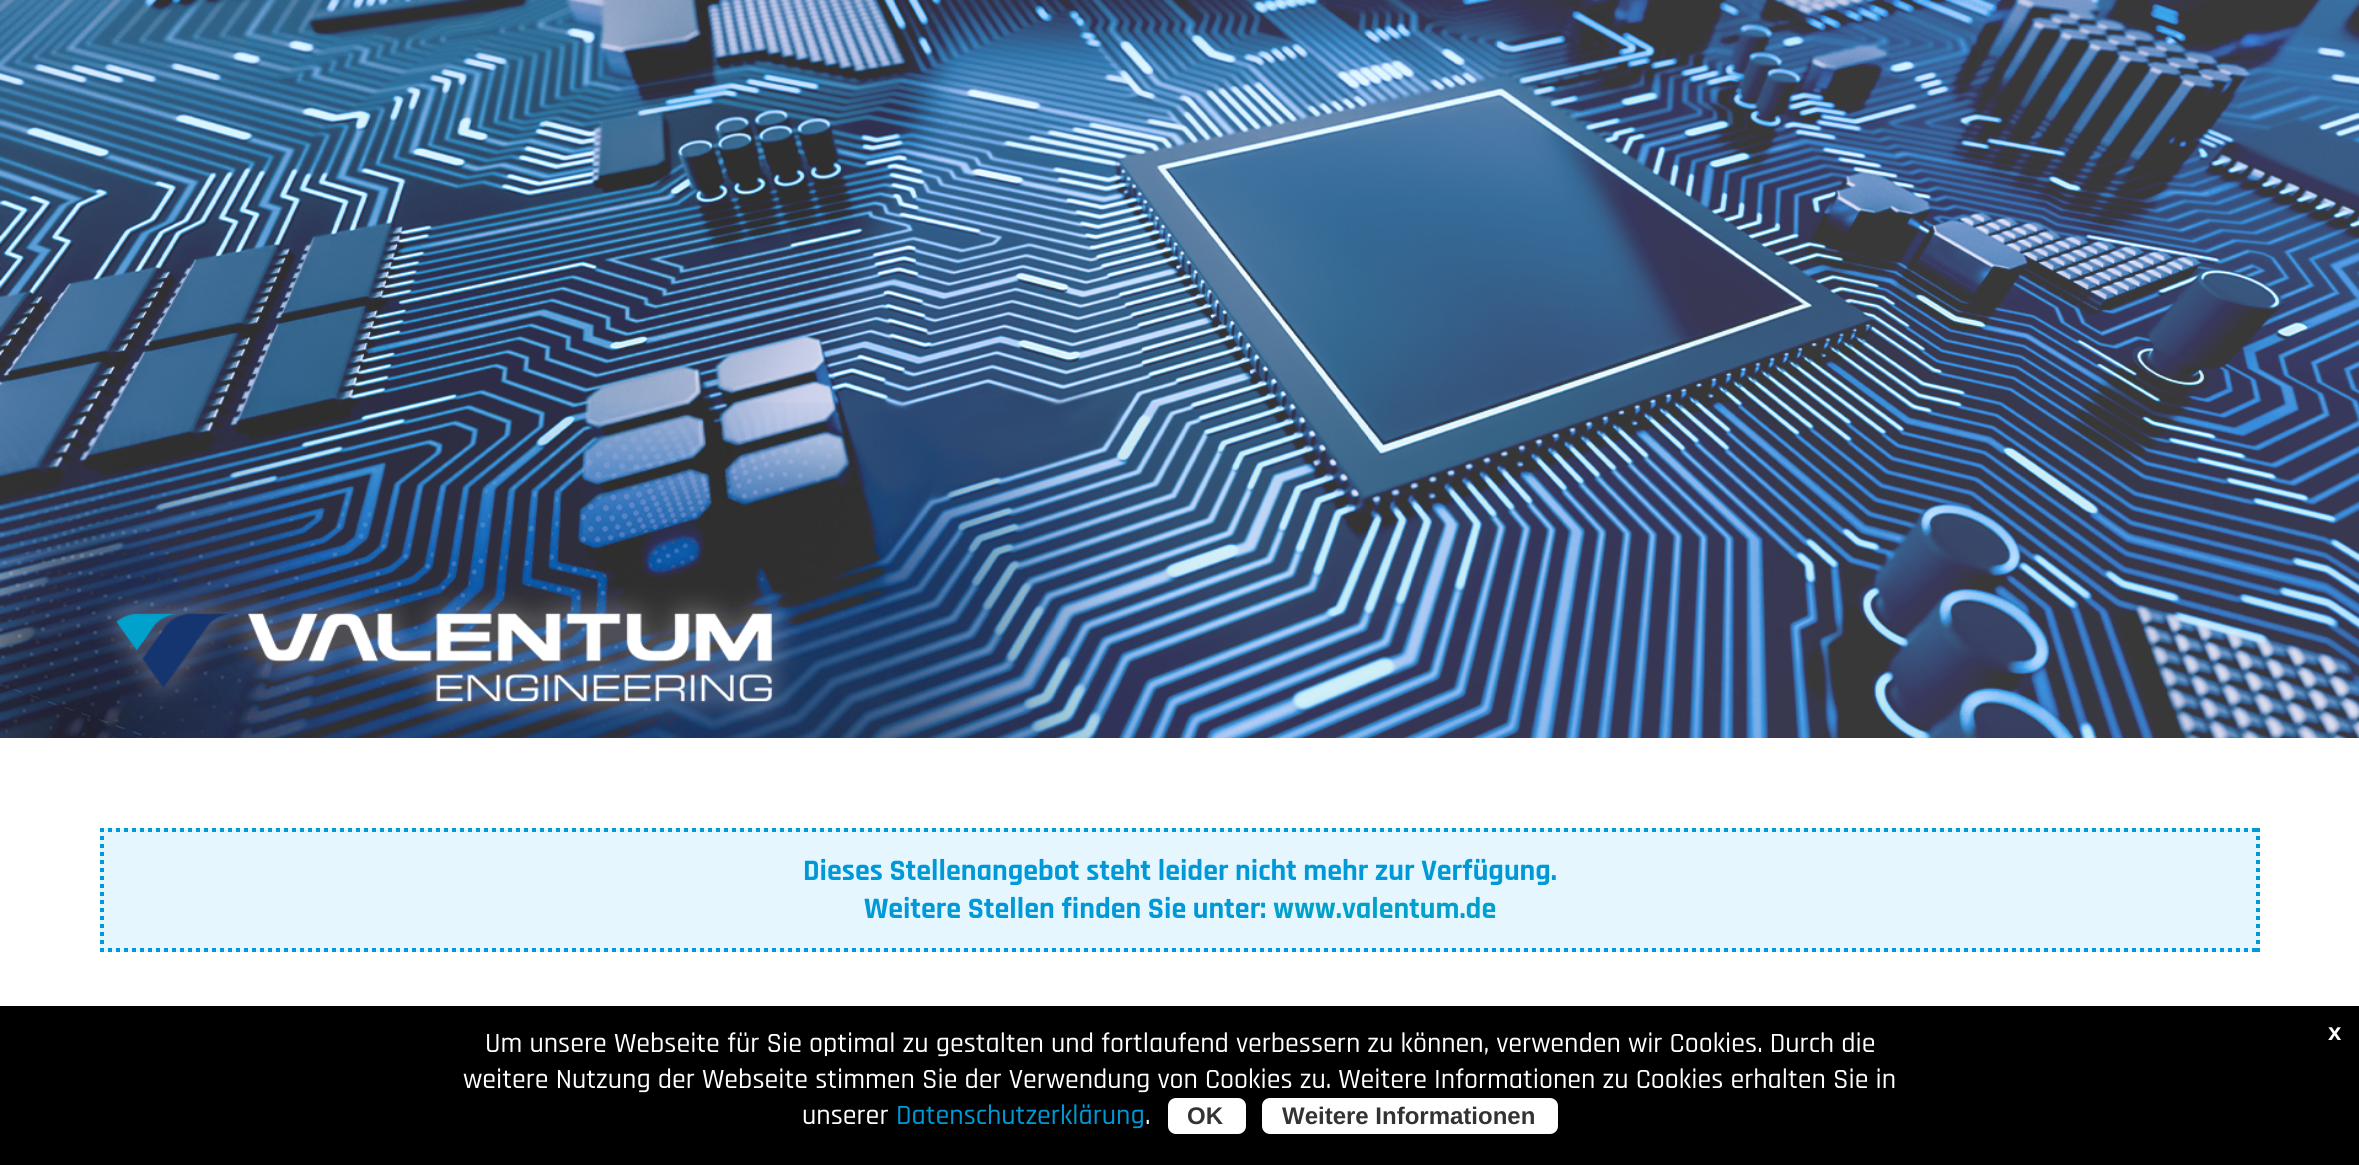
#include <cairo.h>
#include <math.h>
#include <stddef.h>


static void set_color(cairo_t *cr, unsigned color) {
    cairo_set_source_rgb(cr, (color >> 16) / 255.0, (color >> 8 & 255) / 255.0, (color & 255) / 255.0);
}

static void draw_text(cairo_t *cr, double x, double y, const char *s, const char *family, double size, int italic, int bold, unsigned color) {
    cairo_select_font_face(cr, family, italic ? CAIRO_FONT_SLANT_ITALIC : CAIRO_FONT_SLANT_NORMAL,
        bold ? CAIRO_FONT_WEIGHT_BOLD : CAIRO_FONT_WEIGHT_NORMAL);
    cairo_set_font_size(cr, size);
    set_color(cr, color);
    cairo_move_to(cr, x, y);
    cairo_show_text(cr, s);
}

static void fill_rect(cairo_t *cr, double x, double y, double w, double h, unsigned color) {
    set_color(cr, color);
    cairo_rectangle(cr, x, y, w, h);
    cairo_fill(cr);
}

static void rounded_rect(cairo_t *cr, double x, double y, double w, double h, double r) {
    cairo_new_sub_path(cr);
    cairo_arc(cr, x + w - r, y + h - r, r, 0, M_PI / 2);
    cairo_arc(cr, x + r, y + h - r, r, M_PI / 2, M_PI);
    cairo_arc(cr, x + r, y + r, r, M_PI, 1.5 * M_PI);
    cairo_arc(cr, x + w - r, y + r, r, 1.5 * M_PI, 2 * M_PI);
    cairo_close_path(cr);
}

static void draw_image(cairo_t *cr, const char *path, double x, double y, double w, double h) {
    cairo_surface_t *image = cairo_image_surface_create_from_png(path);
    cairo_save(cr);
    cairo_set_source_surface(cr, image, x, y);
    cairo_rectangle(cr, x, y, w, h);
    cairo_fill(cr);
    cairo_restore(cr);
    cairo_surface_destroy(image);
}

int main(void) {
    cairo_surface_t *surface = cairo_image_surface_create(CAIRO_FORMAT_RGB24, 2359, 1165);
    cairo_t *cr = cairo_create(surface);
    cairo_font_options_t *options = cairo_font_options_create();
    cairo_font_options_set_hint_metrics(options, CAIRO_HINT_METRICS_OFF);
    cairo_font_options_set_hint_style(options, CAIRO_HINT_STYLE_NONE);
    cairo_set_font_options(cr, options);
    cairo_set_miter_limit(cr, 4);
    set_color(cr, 0xFFFFFF);
    cairo_paint(cr);
    draw_image(cr, "assets/img1.png", 0, 0, 2359, 738);
    fill_rect(cr, 100, 828, 2160, 124, 0xE5F6FF);
    cairo_new_path(cr);
    cairo_move_to(cr, 100, 830);
    cairo_line_to(cr, 2260, 830);
    set_color(cr, 0x0099D7);
    cairo_set_line_width(cr, 4);
    cairo_set_dash(cr, (double[]){4, 4}, 2, 0);
    cairo_stroke(cr);
    cairo_new_path(cr);
    cairo_move_to(cr, 2258, 828);
    cairo_line_to(cr, 2258, 952);
    cairo_stroke(cr);
    cairo_new_path(cr);
    cairo_move_to(cr, 100, 950);
    cairo_line_to(cr, 2260, 950);
    cairo_stroke(cr);
    cairo_new_path(cr);
    cairo_move_to(cr, 102, 828);
    cairo_line_to(cr, 102, 952);
    cairo_stroke(cr);
    draw_text(cr, 803, 880, "Dieses Stellenangebot steht leider nicht mehr zur Verfügung.", "Rajdhani", 30, 0, 1, 0x0099D7);
    draw_text(cr, 864, 918, "Weitere Stellen finden Sie unter:", "Rajdhani", 30, 0, 1, 0x0099D7);
    draw_text(cr, 1273, 918, "www.valentum.de", "Rajdhani", 30, 0, 1, 0x00A1CC);
    fill_rect(cr, 0, 1006, 2359, 159, 0x000000);
    draw_text(cr, 485, 1052, "Um unsere Webseite für Sie optimal zu gestalten und fortlaufend verbessern zu können, verwenden wir Cookies. Durch die", "Rajdhani Medium", 28, 0, 0, 0xFFFFFF);
    draw_text(cr, 463, 1088, "weitere Nutzung der Webseite stimmen Sie der Verwendung von Cookies zu. Weitere Informationen zu Cookies erhalten Sie in", "Rajdhani Medium", 28, 0, 0, 0xFFFFFF);
    draw_text(cr, 802, 1124, "unserer", "Rajdhani Medium", 28, 0, 0, 0xFFFFFF);
    draw_text(cr, 896, 1124, "Datenschutzerklärung", "Rajdhani Medium", 28, 0, 0, 0x0099D7);
    draw_text(cr, 1145, 1124, ".", "Rajdhani Medium", 28, 0, 0, 0xFFFFFF);
    rounded_rect(cr, 1168, 1098, 78, 36, 8);
    cairo_fill(cr);
    draw_text(cr, 1187, 1124, "OK", "Liberation Sans", 24, 0, 1, 0x333333);
    set_color(cr, 0xFFFFFF);
    rounded_rect(cr, 1262, 1098, 296, 36, 8);
    cairo_fill(cr);
    draw_text(cr, 1282, 1124, "Weitere Informationen", "Liberation Sans", 24, 0, 1, 0x333333);
    draw_text(cr, 2328, 1040, "x", "Liberation Sans", 24, 0, 1, 0xFFFFFF);
    cairo_surface_write_to_png(surface, "output.png");
    cairo_font_options_destroy(options);
    cairo_destroy(cr);
    cairo_surface_destroy(surface);
    return 0;
}
